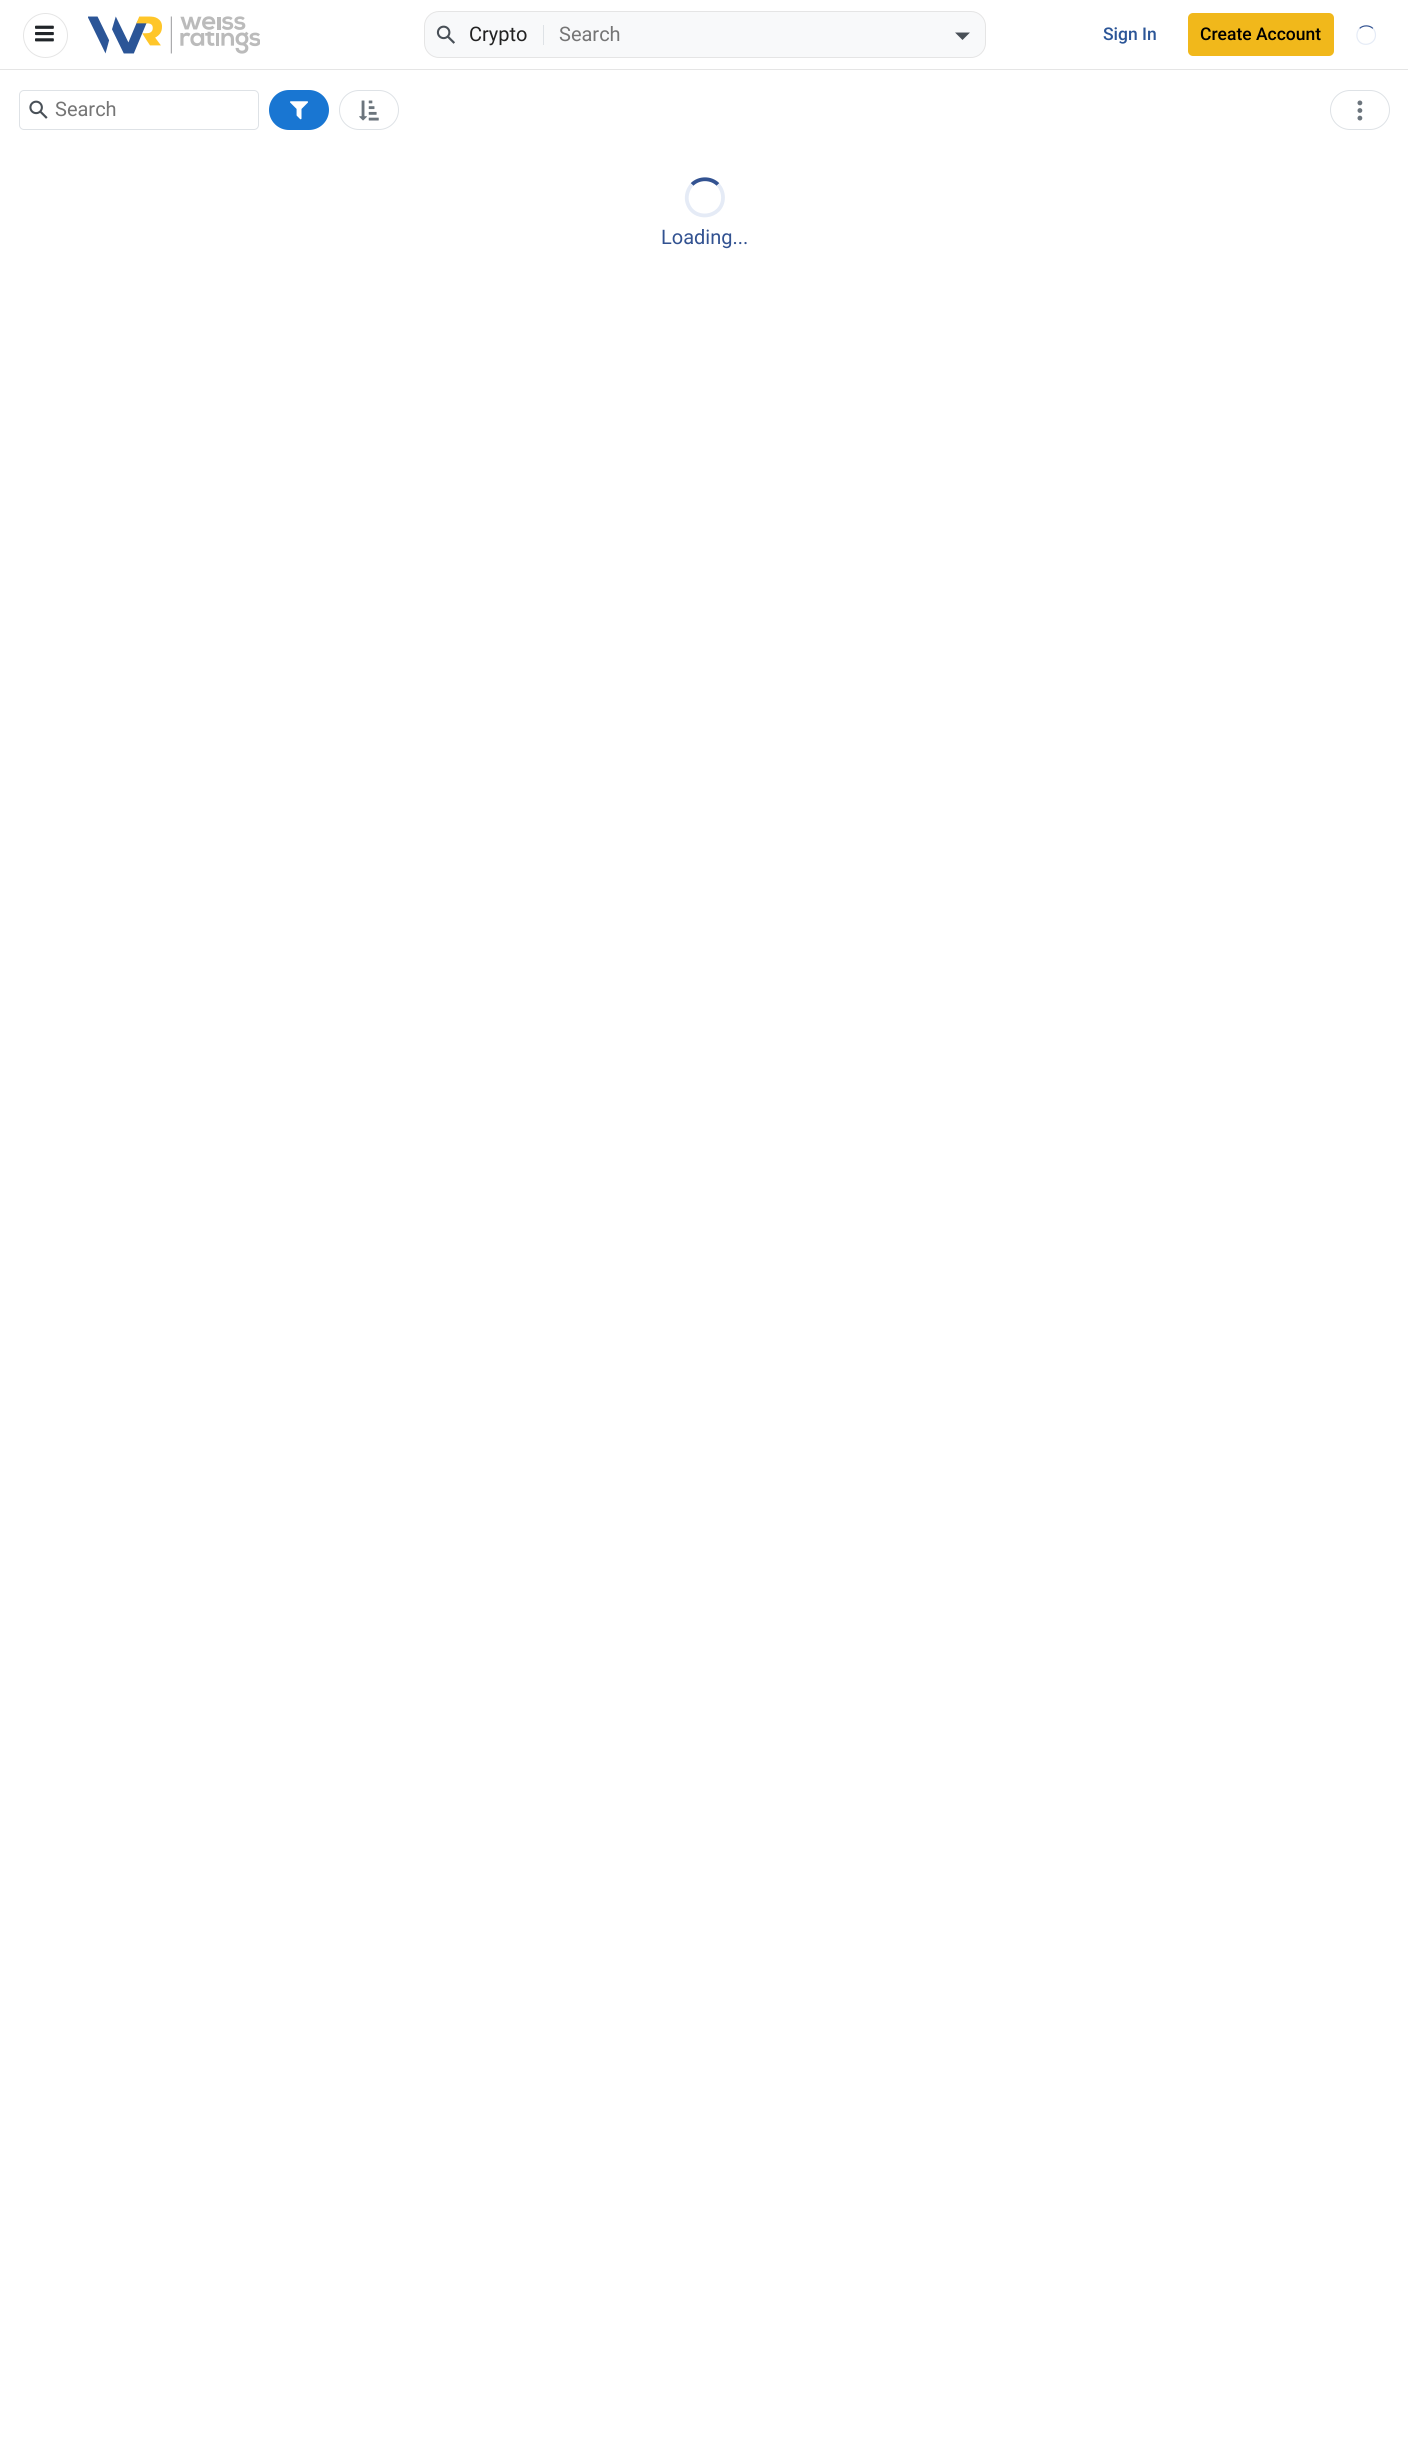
#include <cairo.h>
#include <math.h>
#include <stddef.h>


static void set_color(cairo_t *cr, unsigned color) {
    cairo_set_source_rgb(cr, (color >> 16) / 255.0, (color >> 8 & 255) / 255.0, (color & 255) / 255.0);
}

static void draw_text(cairo_t *cr, double x, double y, const char *s, const char *family, double size, int italic, int bold, unsigned color) {
    cairo_select_font_face(cr, family, italic ? CAIRO_FONT_SLANT_ITALIC : CAIRO_FONT_SLANT_NORMAL,
        bold ? CAIRO_FONT_WEIGHT_BOLD : CAIRO_FONT_WEIGHT_NORMAL);
    cairo_set_font_size(cr, size);
    set_color(cr, color);
    cairo_move_to(cr, x, y);
    cairo_show_text(cr, s);
}

static void fill_rect(cairo_t *cr, double x, double y, double w, double h, unsigned color) {
    set_color(cr, color);
    cairo_rectangle(cr, x, y, w, h);
    cairo_fill(cr);
}

static void rounded_rect(cairo_t *cr, double x, double y, double w, double h, double r) {
    cairo_new_sub_path(cr);
    cairo_arc(cr, x + w - r, y + h - r, r, 0, M_PI / 2);
    cairo_arc(cr, x + r, y + h - r, r, M_PI / 2, M_PI);
    cairo_arc(cr, x + r, y + r, r, M_PI, 1.5 * M_PI);
    cairo_arc(cr, x + w - r, y + r, r, 1.5 * M_PI, 2 * M_PI);
    cairo_close_path(cr);
}

static void draw_image(cairo_t *cr, const char *path, double x, double y, double w, double h) {
    cairo_surface_t *image = cairo_image_surface_create_from_png(path);
    cairo_save(cr);
    cairo_set_source_surface(cr, image, x, y);
    cairo_rectangle(cr, x, y, w, h);
    cairo_fill(cr);
    cairo_restore(cr);
    cairo_surface_destroy(image);
}

int main(void) {
    cairo_surface_t *surface = cairo_image_surface_create(CAIRO_FORMAT_RGB24, 1408, 2462);
    cairo_t *cr = cairo_create(surface);
    cairo_font_options_t *options = cairo_font_options_create();
    cairo_font_options_set_hint_metrics(options, CAIRO_HINT_METRICS_OFF);
    cairo_font_options_set_hint_style(options, CAIRO_HINT_STYLE_NONE);
    cairo_set_font_options(cr, options);
    cairo_set_miter_limit(cr, 4);
    set_color(cr, 0xFFFFFF);
    cairo_paint(cr);
    fill_rect(cr, 0, 69, 1408, 1, 0xE5E5E5);
    cairo_arc(cr, 45.5, 35.5, 22, 0, 2 * M_PI);
    cairo_set_line_width(cr, 1);
    cairo_stroke(cr);
    draw_image(cr, "assets/img1.png", 35, 25, 19, 17);
    draw_image(cr, "assets/img2.png", 88, 16, 172, 38);
    set_color(cr, 0xF8F9FA);
    rounded_rect(cr, 424.5, 11.5, 561, 46, 14.5);
    cairo_fill_preserve(cr);
    set_color(cr, 0xE5E5E5);
    cairo_stroke(cr);
    draw_image(cr, "assets/img3.png", 436, 25, 19, 19);
    fill_rect(cr, 543, 25, 1, 20, 0xDEE2E6);
    draw_text(cr, 469, 41, "Crypto", "Roboto", 20, 0, 0, 0x222222);
    draw_text(cr, 559, 41, "Search", "Roboto", 20, 0, 0, 0x757575);
    set_color(cr, 0x495057);
    cairo_new_path(cr);
    cairo_move_to(cr, 955, 32.5);
    cairo_line_to(cr, 962.5, 40);
    cairo_line_to(cr, 970, 32.5);
    cairo_close_path(cr);
    cairo_fill(cr);
    draw_text(cr, 1103, 40, "Sign In", "Roboto Medium", 17.5, 0, 0, 0x2B5597);
    set_color(cr, 0xF1B81B);
    rounded_rect(cr, 1188, 13, 146, 43, 5);
    cairo_fill(cr);
    draw_text(cr, 1200, 40, "Create Account", "Roboto Medium", 17.5, 0, 0, 0x000000);
    cairo_new_path(cr);
    cairo_move_to(cr, 1359.5, 28.5);
    cairo_curve_to(cr, 1363, 25, 1369.5, 25, 1373, 28.5);
    set_color(cr, 0x325291);
    cairo_set_line_width(cr, 1.2);
    cairo_stroke(cr);
    cairo_new_path(cr);
    cairo_move_to(cr, 1373, 28.5);
    cairo_curve_to(cr, 1374.5, 30, 1375.5, 32.5, 1375.5, 35);
    cairo_curve_to(cr, 1375.5, 46, 1359, 48, 1357, 37);
    cairo_curve_to(cr, 1356.5, 34, 1357.5, 30.5, 1359.5, 28.5);
    set_color(cr, 0xE5EBF6);
    cairo_stroke(cr);
    rounded_rect(cr, 19.5, 90.5, 239, 39, 4.5);
    set_color(cr, 0xDEE2E6);
    cairo_set_line_width(cr, 1);
    cairo_stroke(cr);
    draw_image(cr, "assets/img4.png", 29, 100, 19, 19);
    draw_text(cr, 55, 116, "Search", "Roboto", 20, 0, 0, 0x757575);
    set_color(cr, 0x1976D2);
    rounded_rect(cr, 269, 90, 60, 40, 20);
    cairo_fill(cr);
    draw_image(cr, "assets/img5.png", 290, 101, 18, 19);
    rounded_rect(cr, 339.5, 90.5, 59, 39, 19.5);
    set_color(cr, 0xDEE2E6);
    cairo_stroke(cr);
    draw_image(cr, "assets/img6.png", 359, 100, 20, 21);
    rounded_rect(cr, 1330.5, 90.5, 59, 39, 19.5);
    cairo_stroke(cr);
    draw_image(cr, "assets/img7.png", 1357, 100, 6, 21);
    cairo_new_path(cr);
    cairo_move_to(cr, 692, 184.5);
    cairo_curve_to(cr, 699, 177.5, 711, 177.5, 718, 184.5);
    set_color(cr, 0x325291);
    cairo_set_line_width(cr, 3.8);
    cairo_stroke(cr);
    cairo_new_path(cr);
    cairo_move_to(cr, 718, 184.5);
    cairo_curve_to(cr, 721, 188, 723, 192.5, 723, 197.5);
    cairo_curve_to(cr, 723, 219, 691.5, 222.5, 687, 201);
    cairo_curve_to(cr, 686, 195, 688, 189, 692, 184.5);
    set_color(cr, 0xE5EBF6);
    cairo_stroke(cr);
    draw_text(cr, 661, 244, "Loading...", "Roboto", 20, 0, 0, 0x325291);
    cairo_surface_write_to_png(surface, "output.png");
    cairo_font_options_destroy(options);
    cairo_destroy(cr);
    cairo_surface_destroy(surface);
    return 0;
}
